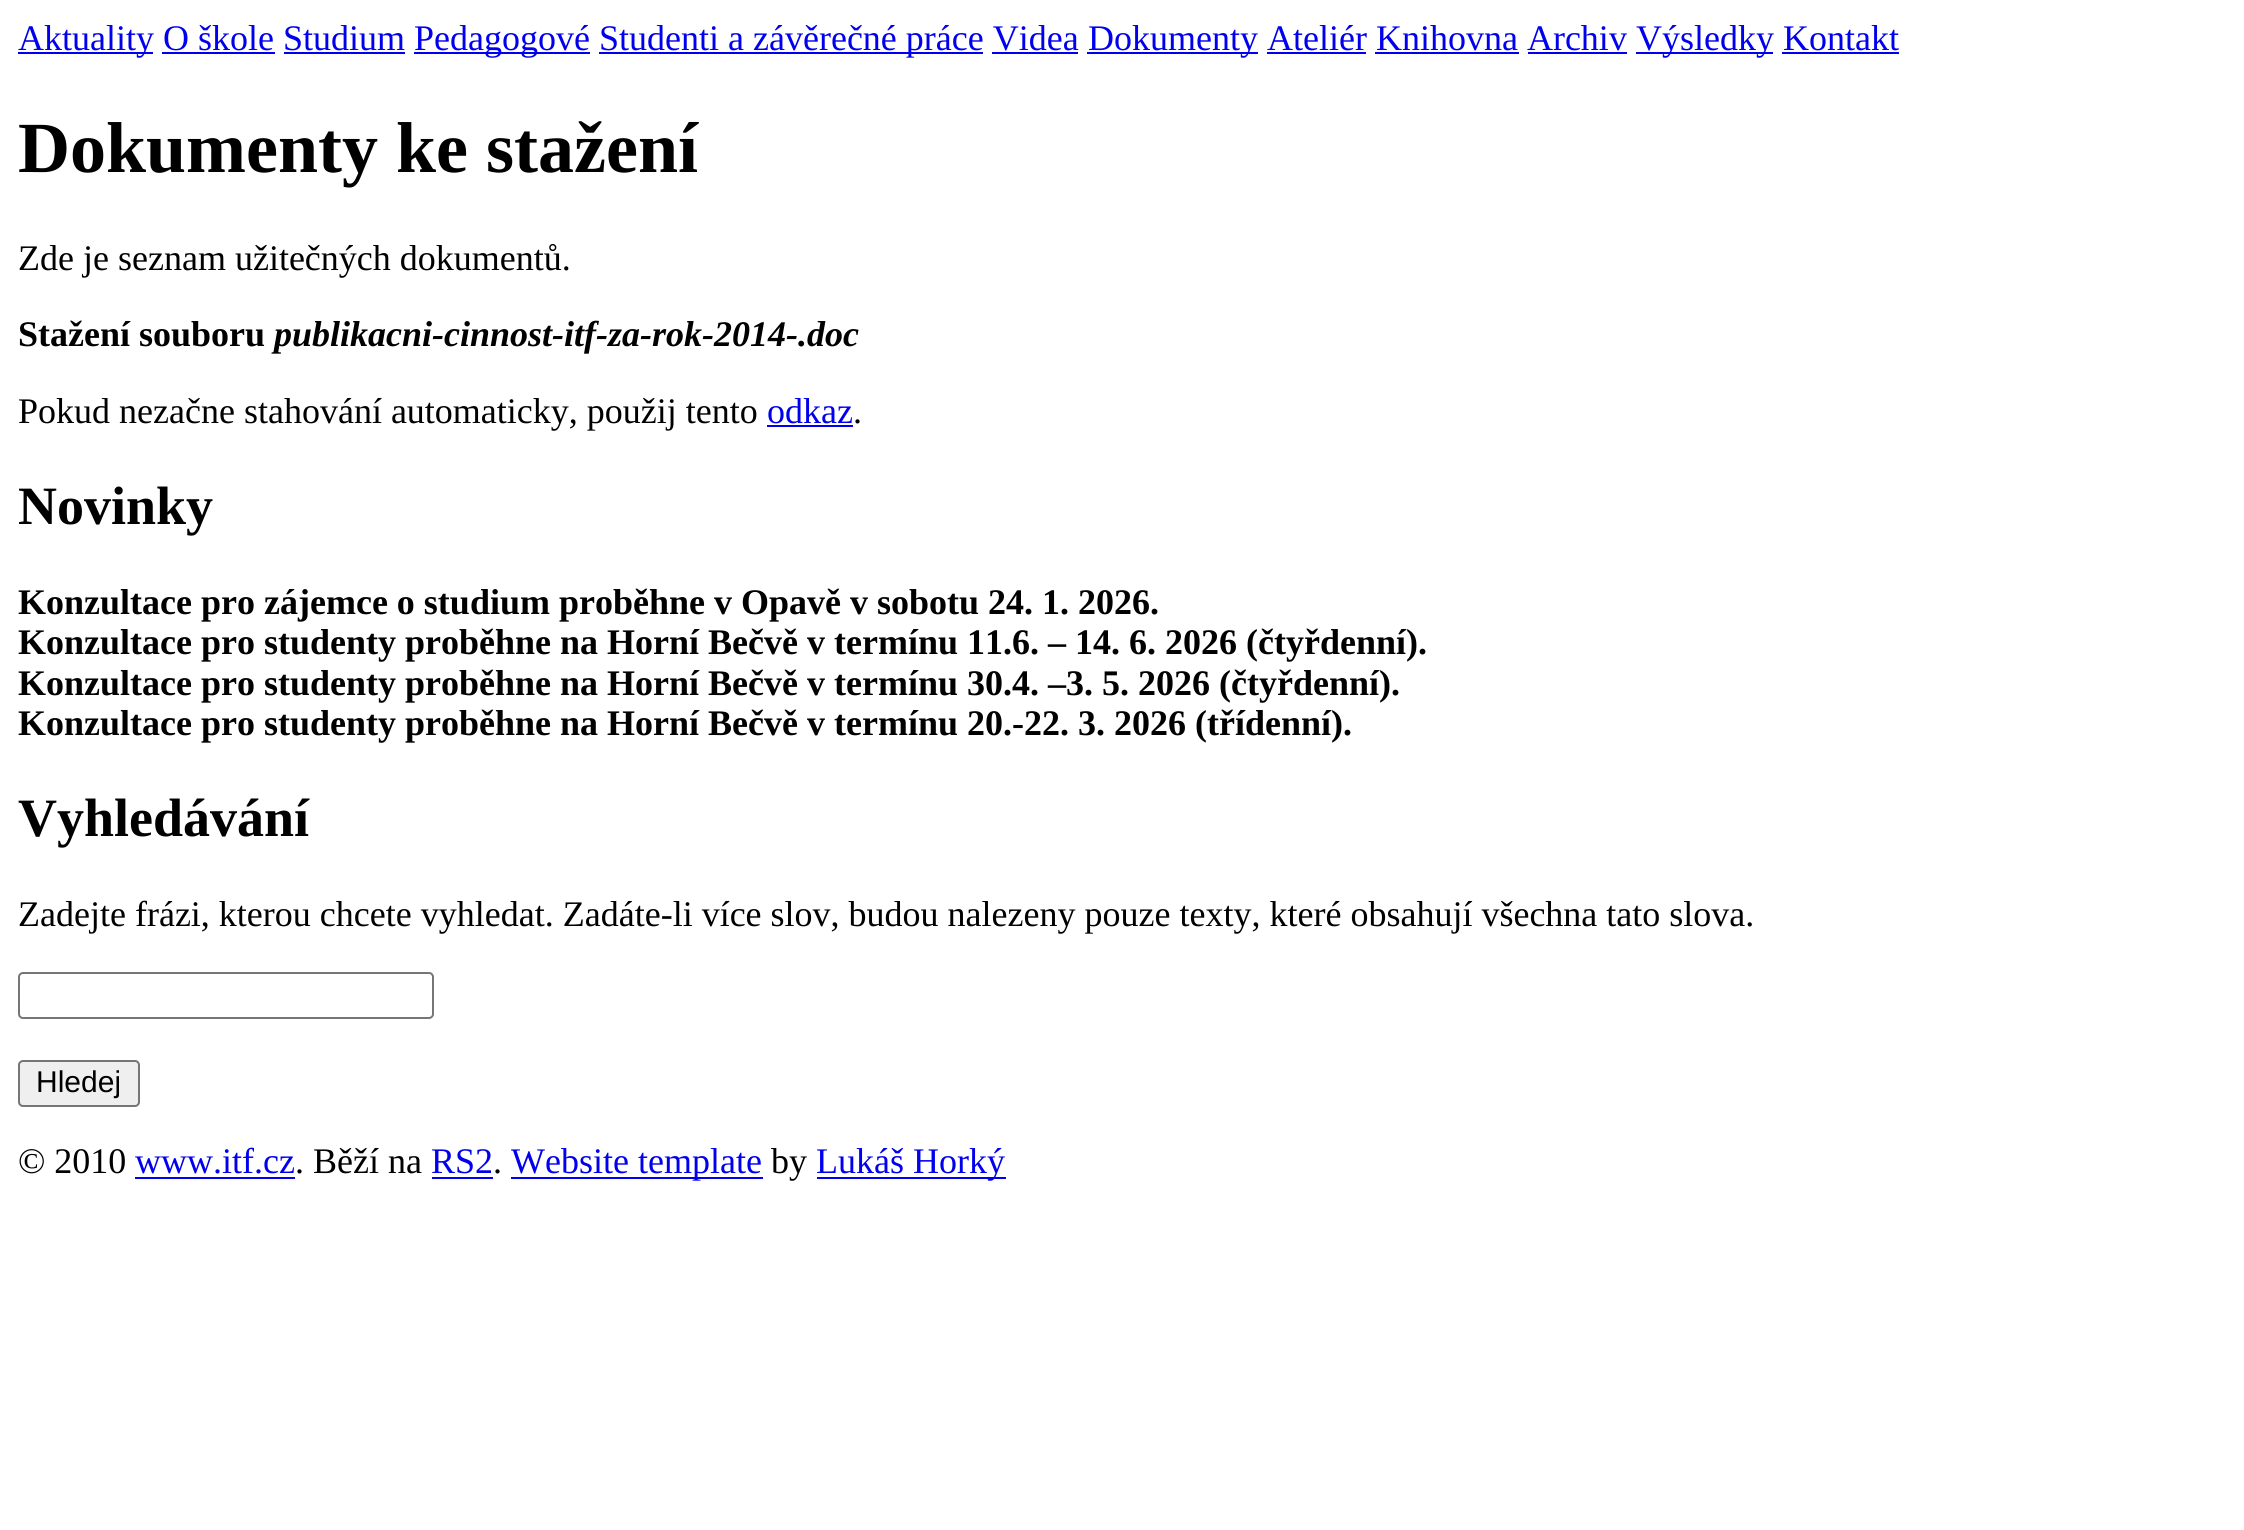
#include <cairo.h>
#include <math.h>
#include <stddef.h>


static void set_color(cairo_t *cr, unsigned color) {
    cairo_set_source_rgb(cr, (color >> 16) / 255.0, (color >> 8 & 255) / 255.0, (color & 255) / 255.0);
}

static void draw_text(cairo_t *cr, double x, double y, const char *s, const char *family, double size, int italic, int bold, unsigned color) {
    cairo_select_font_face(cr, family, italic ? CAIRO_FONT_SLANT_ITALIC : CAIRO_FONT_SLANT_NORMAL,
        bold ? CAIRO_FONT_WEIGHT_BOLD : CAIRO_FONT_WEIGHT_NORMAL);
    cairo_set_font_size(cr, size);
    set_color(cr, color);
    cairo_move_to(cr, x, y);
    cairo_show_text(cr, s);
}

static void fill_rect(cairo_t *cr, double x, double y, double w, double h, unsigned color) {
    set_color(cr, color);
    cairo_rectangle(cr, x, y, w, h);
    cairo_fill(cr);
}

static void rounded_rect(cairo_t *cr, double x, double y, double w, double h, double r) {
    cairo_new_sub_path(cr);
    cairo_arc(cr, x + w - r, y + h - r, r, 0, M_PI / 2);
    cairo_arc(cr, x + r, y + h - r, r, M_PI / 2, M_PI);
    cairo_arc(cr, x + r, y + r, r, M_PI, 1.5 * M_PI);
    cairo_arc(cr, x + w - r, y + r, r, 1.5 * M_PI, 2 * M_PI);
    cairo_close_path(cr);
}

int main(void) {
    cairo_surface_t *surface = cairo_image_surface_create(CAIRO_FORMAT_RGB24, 2244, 1530);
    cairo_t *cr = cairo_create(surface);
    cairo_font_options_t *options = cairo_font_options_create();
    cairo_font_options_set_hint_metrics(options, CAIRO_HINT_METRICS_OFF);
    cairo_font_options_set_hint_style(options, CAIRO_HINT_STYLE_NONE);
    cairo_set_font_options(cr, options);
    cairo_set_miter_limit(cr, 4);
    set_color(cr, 0xFFFFFF);
    cairo_paint(cr);
    fill_rect(cr, 18, 52, 135, 2, 0x0000EE);
    draw_text(cr, 18, 50, "Aktuality O škole Studium", "Liberation Serif", 36, 0, 0, 0x0000EE);
    fill_rect(cr, 414, 52, 176, 2, 0x0000EE);
    draw_text(cr, 414, 50, "Pedagogové", "Liberation Serif", 36, 0, 0, 0x0000EE);
    fill_rect(cr, 599, 52, 384, 2, 0x0000EE);
    draw_text(cr, 599, 50, "Studenti a závěrečné práce Videa", "Liberation Serif", 36, 0, 0, 0x0000EE);
    fill_rect(cr, 1087, 52, 171, 2, 0x0000EE);
    draw_text(cr, 1088, 50, "Dokumenty Ateliér Knihovna Archiv", "Liberation Serif", 36, 0, 0, 0x0000EE);
    fill_rect(cr, 1636, 52, 137, 2, 0x0000EE);
    draw_text(cr, 1636, 50, "Výsledky Kontakt", "Liberation Serif", 36, 0, 0, 0x0000EE);
    fill_rect(cr, 162, 52, 113, 2, 0x0000EE);
    fill_rect(cr, 284, 52, 121, 2, 0x0000EE);
    fill_rect(cr, 992, 52, 86, 2, 0x0000EE);
    fill_rect(cr, 1267, 52, 99, 2, 0x0000EE);
    fill_rect(cr, 1375, 52, 144, 2, 0x0000EE);
    fill_rect(cr, 1528, 52, 99, 2, 0x0000EE);
    fill_rect(cr, 1782, 52, 117, 2, 0x0000EE);
    draw_text(cr, 18, 172, "Dokumenty ke stažení", "Liberation Serif", 72, 0, 1, 0x000000);
    draw_text(cr, 18, 270, "Zde je seznam užitečných dokumentů.", "Liberation Serif", 36, 0, 0, 0x000000);
    draw_text(cr, 18, 346, "Stažení souboru", "Liberation Serif", 36, 0, 1, 0x000000);
    draw_text(cr, 274, 346, "publikacni-cinnost-itf-za-rok-2014-.doc", "Liberation Serif", 36, 1, 1, 0x000000);
    draw_text(cr, 18, 423, "Pokud nezačne stahování automaticky, použij tento", "Liberation Serif", 36, 0, 0, 0x000000);
    draw_text(cr, 767, 423, "odkaz", "Liberation Serif", 36, 0, 0, 0x0000EE);
    fill_rect(cr, 767, 425, 86, 2, 0x0000EE);
    draw_text(cr, 853, 423, ".", "Liberation Serif", 36, 0, 0, 0x000000);
    draw_text(cr, 18, 524, "Novinky", "Liberation Serif", 54, 0, 1, 0x000000);
    draw_text(cr, 18, 614, "Konzultace pro zájemce o studium proběhne v Opavě v sobotu 24. 1. 2026.", "Liberation Serif", 36, 0, 1, 0x000000);
    draw_text(cr, 18, 654, "Konzultace pro studenty proběhne na Horní Bečvě v termínu 11.6. – 14. 6. 2026 (čtyřdenní).", "Liberation Serif", 36, 0, 1, 0x000000);
    draw_text(cr, 18, 695, "Konzultace pro studenty proběhne na Horní Bečvě v termínu 30.4. –3. 5. 2026 (čtyřdenní).", "Liberation Serif", 36, 0, 1, 0x000000);
    draw_text(cr, 18, 735, "Konzultace pro studenty proběhne na Horní Bečvě v termínu 20.-22. 3. 2026 (třídenní).", "Liberation Serif", 36, 0, 1, 0x000000);
    draw_text(cr, 18, 836, "Vyhledávání", "Liberation Serif", 54, 0, 1, 0x000000);
    draw_text(cr, 18, 926, "Zadejte frázi, kterou chcete vyhledat. Zadáte-li více slov, budou nalezeny pouze texty, které obsahují všechna tato slova.", "Liberation Serif", 36, 0, 0, 0x000000);
    rounded_rect(cr, 19, 973, 414, 45, 4);
    set_color(cr, 0x767676);
    cairo_stroke(cr);
    set_color(cr, 0xEFEFEF);
    rounded_rect(cr, 19, 1061, 120, 45, 4);
    cairo_fill_preserve(cr);
    set_color(cr, 0x767676);
    cairo_stroke(cr);
    draw_text(cr, 36, 1092, "Hledej", "Liberation Sans", 30, 0, 0, 0x000000);
    draw_text(cr, 18, 1173, "© 2010", "Liberation Serif", 36, 0, 0, 0x000000);
    draw_text(cr, 135, 1173, "www.itf.cz", "Liberation Serif", 36, 0, 0, 0x0000EE);
    fill_rect(cr, 135, 1177, 160, 2, 0x0000EE);
    draw_text(cr, 295, 1173, ". Běží na", "Liberation Serif", 36, 0, 0, 0x000000);
    draw_text(cr, 431, 1173, "RS2", "Liberation Serif", 36, 0, 0, 0x0000EE);
    fill_rect(cr, 432, 1177, 61, 2, 0x0000EE);
    draw_text(cr, 493, 1173, ".", "Liberation Serif", 36, 0, 0, 0x000000);
    fill_rect(cr, 511, 1177, 252, 2, 0x0000EE);
    draw_text(cr, 511, 1173, "Website template", "Liberation Serif", 36, 0, 0, 0x0000EE);
    draw_text(cr, 771, 1173, "by", "Liberation Serif", 36, 0, 0, 0x000000);
    fill_rect(cr, 817, 1177, 189, 2, 0x0000EE);
    draw_text(cr, 816, 1173, "Lukáš Horký", "Liberation Serif", 36, 0, 0, 0x0000EE);
    cairo_surface_write_to_png(surface, "output.png");
    cairo_font_options_destroy(options);
    cairo_destroy(cr);
    cairo_surface_destroy(surface);
    return 0;
}
